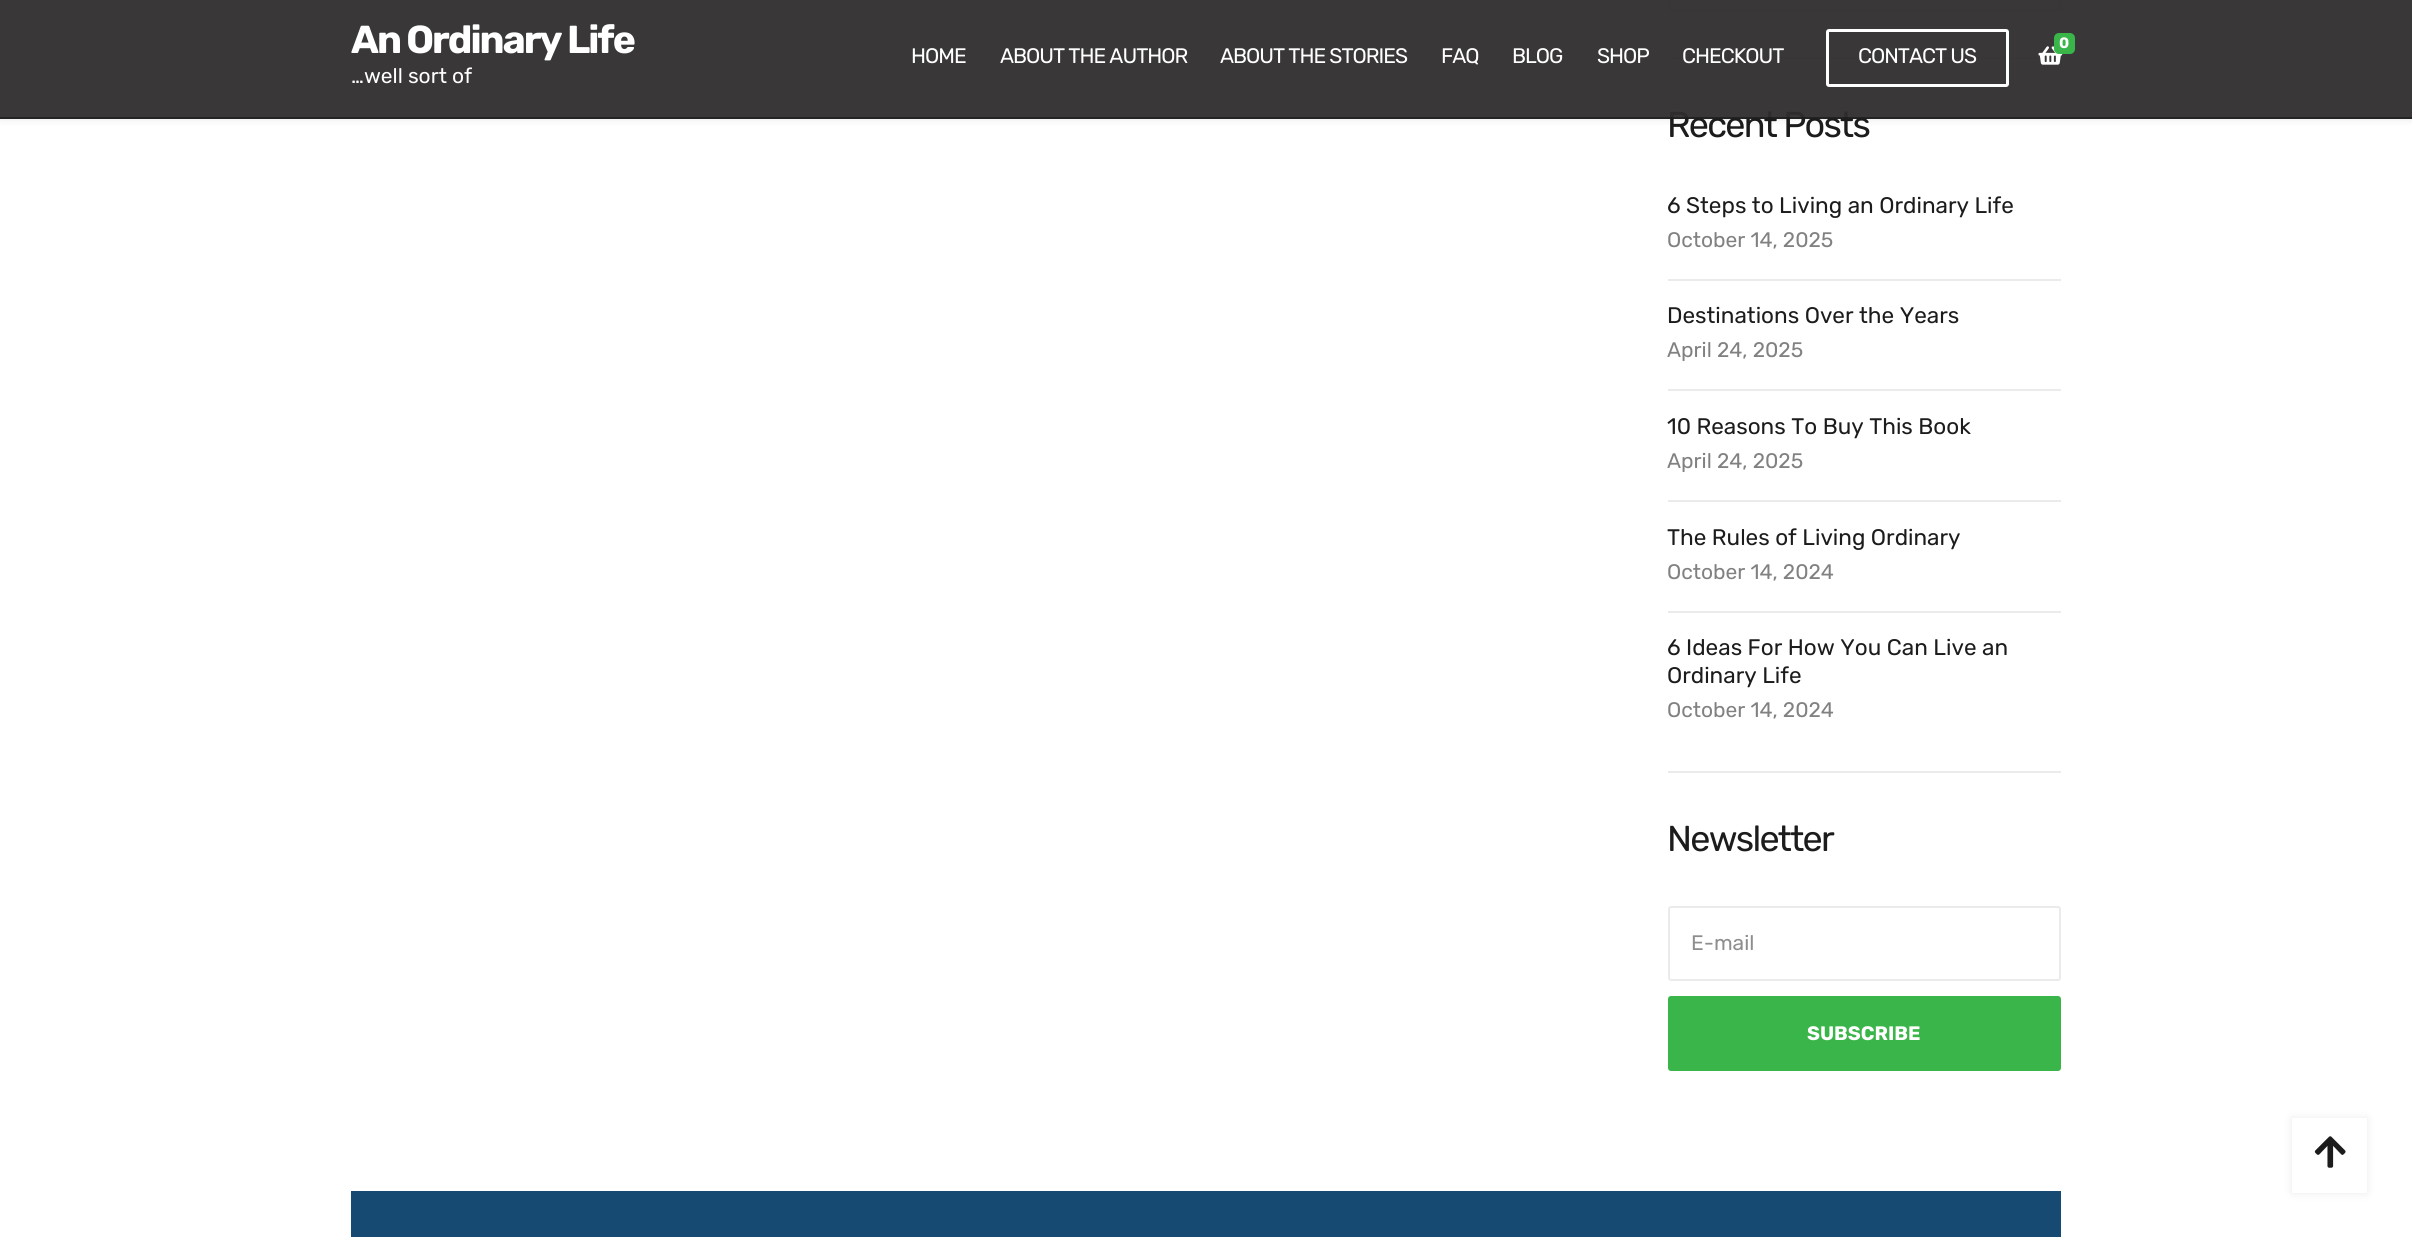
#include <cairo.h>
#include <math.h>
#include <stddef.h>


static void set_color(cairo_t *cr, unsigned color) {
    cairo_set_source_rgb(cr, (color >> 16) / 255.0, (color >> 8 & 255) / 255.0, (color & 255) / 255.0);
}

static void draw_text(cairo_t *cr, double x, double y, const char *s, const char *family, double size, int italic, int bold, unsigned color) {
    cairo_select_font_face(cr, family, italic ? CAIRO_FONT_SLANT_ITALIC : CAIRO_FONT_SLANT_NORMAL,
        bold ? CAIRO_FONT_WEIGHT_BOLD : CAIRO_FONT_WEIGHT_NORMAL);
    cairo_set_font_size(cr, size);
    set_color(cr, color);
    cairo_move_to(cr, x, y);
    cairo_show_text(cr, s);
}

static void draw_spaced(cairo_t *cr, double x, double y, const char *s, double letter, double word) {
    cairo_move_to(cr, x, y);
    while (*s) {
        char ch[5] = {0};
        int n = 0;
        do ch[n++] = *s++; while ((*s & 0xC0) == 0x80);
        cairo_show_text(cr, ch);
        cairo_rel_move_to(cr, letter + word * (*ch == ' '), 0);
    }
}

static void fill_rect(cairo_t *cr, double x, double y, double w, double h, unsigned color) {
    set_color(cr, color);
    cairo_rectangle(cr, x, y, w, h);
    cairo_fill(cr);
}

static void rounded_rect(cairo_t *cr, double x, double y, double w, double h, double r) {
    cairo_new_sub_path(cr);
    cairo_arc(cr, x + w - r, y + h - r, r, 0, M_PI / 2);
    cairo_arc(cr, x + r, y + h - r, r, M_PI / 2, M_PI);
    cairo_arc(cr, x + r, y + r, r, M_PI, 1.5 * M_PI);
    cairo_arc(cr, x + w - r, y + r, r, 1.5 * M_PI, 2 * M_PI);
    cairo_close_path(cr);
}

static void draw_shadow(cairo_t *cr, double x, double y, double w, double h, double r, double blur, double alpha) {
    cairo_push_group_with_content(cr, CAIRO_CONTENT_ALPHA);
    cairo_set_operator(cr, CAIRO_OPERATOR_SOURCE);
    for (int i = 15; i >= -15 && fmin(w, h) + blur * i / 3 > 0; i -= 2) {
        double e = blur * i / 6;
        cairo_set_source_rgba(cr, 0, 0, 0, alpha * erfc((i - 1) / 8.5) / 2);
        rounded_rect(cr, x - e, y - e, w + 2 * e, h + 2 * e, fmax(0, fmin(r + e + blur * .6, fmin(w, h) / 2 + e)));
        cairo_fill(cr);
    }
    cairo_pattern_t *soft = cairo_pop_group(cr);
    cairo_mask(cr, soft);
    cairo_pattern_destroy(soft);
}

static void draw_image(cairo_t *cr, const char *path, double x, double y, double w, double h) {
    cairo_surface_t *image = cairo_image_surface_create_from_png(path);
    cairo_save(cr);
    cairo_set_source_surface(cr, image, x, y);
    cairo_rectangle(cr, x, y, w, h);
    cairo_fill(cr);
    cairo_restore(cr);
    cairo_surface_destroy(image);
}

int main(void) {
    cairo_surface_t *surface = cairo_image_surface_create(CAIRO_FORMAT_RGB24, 2412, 1237);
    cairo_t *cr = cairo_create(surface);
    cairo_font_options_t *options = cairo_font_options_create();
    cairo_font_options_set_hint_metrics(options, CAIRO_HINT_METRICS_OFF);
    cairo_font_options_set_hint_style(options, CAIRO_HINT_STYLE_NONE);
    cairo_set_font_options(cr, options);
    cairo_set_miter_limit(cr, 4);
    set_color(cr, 0xFFFFFF);
    cairo_paint(cr);
    fill_rect(cr, 1668, 57, 393, 2, 0xEBEBEB);
    rounded_rect(cr, 1669, -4, 391, 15, 2);
    cairo_stroke(cr);
    cairo_save(cr);
    cairo_set_fill_rule(cr, CAIRO_FILL_RULE_EVEN_ODD);
    cairo_new_path(cr);
    cairo_move_to(cr, 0, 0);
    cairo_line_to(cr, 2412, 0);
    cairo_line_to(cr, 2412, 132);
    cairo_line_to(cr, 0, 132);
    cairo_close_path(cr);
    cairo_move_to(cr, 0, -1);
    cairo_line_to(cr, 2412, -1);
    cairo_line_to(cr, 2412, 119);
    cairo_line_to(cr, 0, 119);
    cairo_close_path(cr);
    cairo_clip(cr);
    set_color(cr, 0x000000);
    draw_shadow(cr, 0, -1, 2412, 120, 0, 4, 0.1);
    cairo_restore(cr);
    cairo_select_font_face(cr, "Rubik", CAIRO_FONT_SLANT_NORMAL, CAIRO_FONT_WEIGHT_NORMAL);
    cairo_set_font_size(cr, 36);
    set_color(cr, 0x1C1C1C);
    draw_spaced(cr, 1667, 137, "Recent Posts", -1.75, 0);
    cairo_set_source_rgba(cr, 0.188, 0.18, 0.18, 0.95);
    cairo_rectangle(cr, 0, 0, 2412, 119);
    cairo_fill(cr);
    cairo_set_source_rgba(cr, 0.039, 0.039, 0.039, 0.44);
    cairo_rectangle(cr, 0, 117, 2412, 2);
    cairo_fill(cr);
    cairo_select_font_face(cr, "Rubik", CAIRO_FONT_SLANT_NORMAL, CAIRO_FONT_WEIGHT_BOLD);
    cairo_set_font_size(cr, 39);
    set_color(cr, 0xFFFFFF);
    draw_spaced(cr, 351, 53, "An Ordinary Life", -2, 0);
    draw_text(cr, 351, 83, "…well sort of", "Rubik", 21, 0, 0, 0xFFFFFF);
    draw_image(cr, "assets/img1.png", 2038, 46, 25, 19);
    set_color(cr, 0x39B54A);
    rounded_rect(cr, 2054, 33, 21, 21, 5);
    cairo_fill(cr);
    cairo_select_font_face(cr, "Rubik", CAIRO_FONT_SLANT_NORMAL, CAIRO_FONT_WEIGHT_BOLD);
    cairo_set_font_size(cr, 15);
    set_color(cr, 0xFFFFFF);
    draw_spaced(cr, 2059, 48, "0", -1, 0);
    cairo_select_font_face(cr, "Rubik", CAIRO_FONT_SLANT_NORMAL, CAIRO_FONT_WEIGHT_NORMAL);
    cairo_set_font_size(cr, 21);
    draw_spaced(cr, 911, 63, "HOME", -1, 0);
    draw_spaced(cr, 1000, 63, "ABOUT THE AUTHOR", -1, 0);
    draw_spaced(cr, 1220, 63, "ABOUT THE STORIES", -1, 0);
    draw_spaced(cr, 1441, 63, "FAQ", -1, 0);
    draw_spaced(cr, 1512, 63, "BLOG", -1, 0);
    draw_spaced(cr, 1597, 63, "SHOP", -1, 0);
    draw_spaced(cr, 1682, 63, "CHECKOUT", -1, 0);
    rounded_rect(cr, 1827.5, 30.5, 180, 55, 1.5);
    cairo_set_line_width(cr, 3);
    cairo_stroke(cr);
    draw_spaced(cr, 1858, 63, "CONTACT US", -1, 0);
    fill_rect(cr, 1668, 771, 393, 2, 0xEBEBEB);
    fill_rect(cr, 1668, 279, 393, 2, 0xEBEBEB);
    draw_text(cr, 1667, 213, "6 Steps to Living an Ordinary Life", "Rubik", 22.5, 0, 0, 0x1C1C1C);
    draw_text(cr, 1667, 247, "October 14, 2025", "Rubik", 21, 0, 0, 0x818181);
    fill_rect(cr, 1668, 389, 393, 2, 0xEBEBEB);
    draw_text(cr, 1667, 323, "Destinations Over the Years", "Rubik", 22.5, 0, 0, 0x1C1C1C);
    draw_text(cr, 1667, 357, "April 24, 2025", "Rubik", 21, 0, 0, 0x818181);
    fill_rect(cr, 1668, 500, 393, 2, 0xEBEBEB);
    draw_text(cr, 1667, 434, "10 Reasons To Buy This Book", "Rubik", 22.5, 0, 0, 0x1C1C1C);
    draw_text(cr, 1667, 468, "April 24, 2025", "Rubik", 21, 0, 0, 0x818181);
    fill_rect(cr, 1668, 611, 393, 2, 0xEBEBEB);
    draw_text(cr, 1667, 545, "The Rules of Living Ordinary", "Rubik", 22.5, 0, 0, 0x1C1C1C);
    draw_text(cr, 1667, 579, "October 14, 2024", "Rubik", 21, 0, 0, 0x818181);
    draw_text(cr, 1667, 655, "6 Ideas For How You Can Live an", "Rubik", 22.5, 0, 0, 0x1C1C1C);
    draw_text(cr, 1667, 683, "Ordinary Life", "Rubik", 22.5, 0, 0, 0x1C1C1C);
    draw_text(cr, 1667, 717, "October 14, 2024", "Rubik", 21, 0, 0, 0x818181);
    cairo_set_font_size(cr, 36);
    set_color(cr, 0x1C1C1C);
    draw_spaced(cr, 1667, 851, "Newsletter", -1.75, 0);
    rounded_rect(cr, 1669, 907, 391, 73, 2);
    set_color(cr, 0xEBEBEB);
    cairo_set_line_width(cr, 2);
    cairo_stroke(cr);
    draw_text(cr, 1691, 950, "E-mail", "Rubik", 21, 0, 0, 0x8E8E8E);
    set_color(cr, 0x39B54A);
    rounded_rect(cr, 1669.5, 997.5, 390, 72, 1.5);
    cairo_fill_preserve(cr);
    cairo_set_line_width(cr, 3);
    cairo_stroke(cr);
    draw_text(cr, 1807, 1040, "SUBSCRIBE", "Rubik", 19.5, 0, 1, 0xFFFFFF);
    set_color(cr, 0xEBEBEB);
    draw_shadow(cr, 2292, 1118, 75, 75, 0, 4, 1);
    fill_rect(cr, 2292, 1118, 75, 75, 0xFFFFFF);
    draw_image(cr, "assets/img2.png", 2314, 1136, 32, 32);
    fill_rect(cr, 351, 1191, 1710, 46, 0x174A73);
    cairo_surface_write_to_png(surface, "output.png");
    cairo_font_options_destroy(options);
    cairo_destroy(cr);
    cairo_surface_destroy(surface);
    return 0;
}
